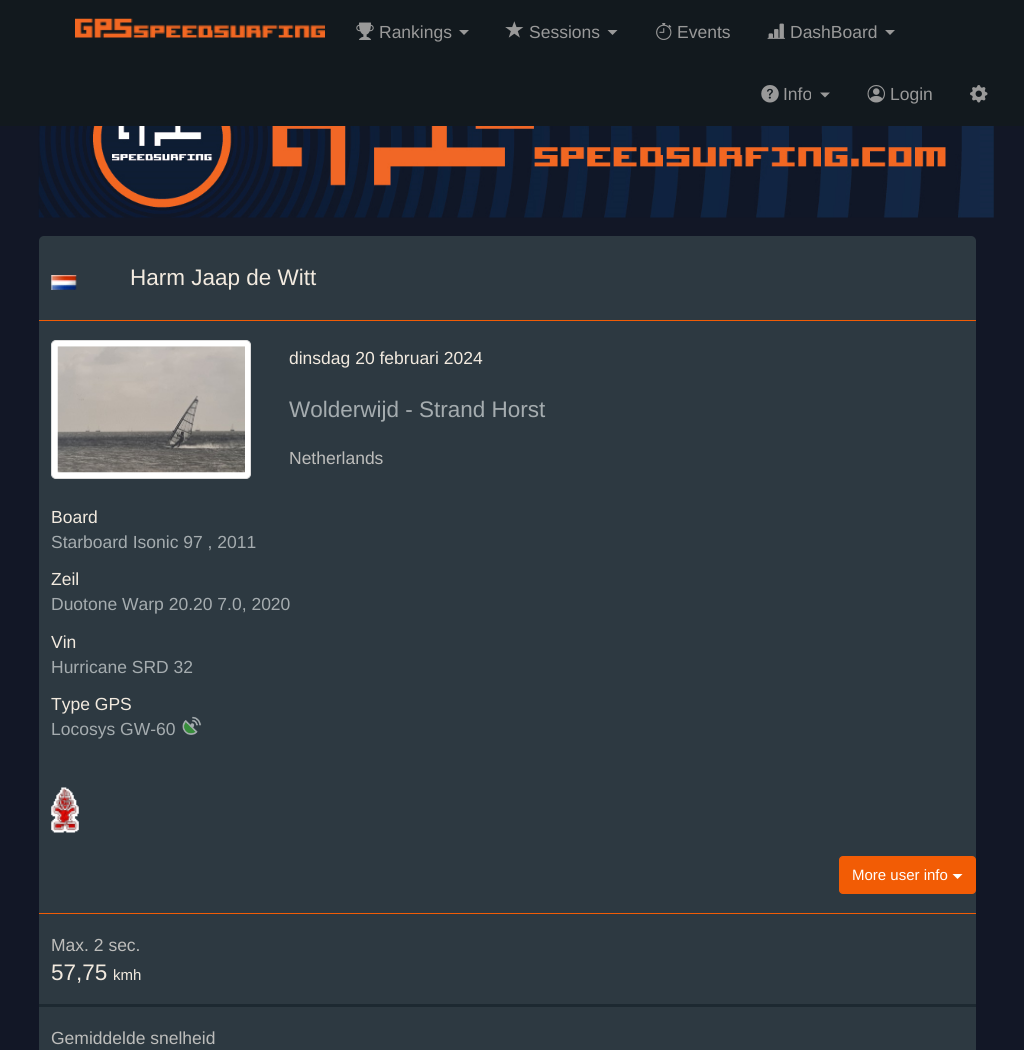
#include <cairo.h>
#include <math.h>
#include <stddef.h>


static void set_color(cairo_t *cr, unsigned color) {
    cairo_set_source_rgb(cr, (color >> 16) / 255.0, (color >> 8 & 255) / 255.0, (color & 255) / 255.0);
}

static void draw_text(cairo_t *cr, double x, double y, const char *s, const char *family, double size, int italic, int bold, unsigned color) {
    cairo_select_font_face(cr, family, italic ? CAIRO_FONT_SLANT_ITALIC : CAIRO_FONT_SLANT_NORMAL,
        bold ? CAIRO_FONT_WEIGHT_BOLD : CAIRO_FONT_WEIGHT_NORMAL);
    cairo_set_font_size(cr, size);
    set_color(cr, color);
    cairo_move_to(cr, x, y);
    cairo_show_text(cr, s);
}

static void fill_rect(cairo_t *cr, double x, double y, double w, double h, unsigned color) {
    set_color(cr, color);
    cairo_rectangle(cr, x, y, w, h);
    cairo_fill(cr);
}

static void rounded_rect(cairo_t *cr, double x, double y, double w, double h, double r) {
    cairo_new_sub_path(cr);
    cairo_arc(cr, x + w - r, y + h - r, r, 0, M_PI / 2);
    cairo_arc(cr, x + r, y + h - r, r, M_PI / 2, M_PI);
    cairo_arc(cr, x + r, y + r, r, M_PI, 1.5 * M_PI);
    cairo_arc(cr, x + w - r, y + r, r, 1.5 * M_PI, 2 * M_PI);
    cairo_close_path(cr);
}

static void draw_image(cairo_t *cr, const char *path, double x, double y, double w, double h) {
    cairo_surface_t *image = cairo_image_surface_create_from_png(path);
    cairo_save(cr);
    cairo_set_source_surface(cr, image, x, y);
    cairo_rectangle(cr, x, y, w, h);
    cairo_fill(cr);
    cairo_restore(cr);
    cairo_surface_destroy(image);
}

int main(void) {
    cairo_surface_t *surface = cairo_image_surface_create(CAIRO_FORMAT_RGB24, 1024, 1050);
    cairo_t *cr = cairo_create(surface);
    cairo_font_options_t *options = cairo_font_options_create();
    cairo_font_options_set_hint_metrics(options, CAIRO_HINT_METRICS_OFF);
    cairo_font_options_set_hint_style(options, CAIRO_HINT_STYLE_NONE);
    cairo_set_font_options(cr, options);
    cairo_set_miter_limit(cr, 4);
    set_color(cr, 0x121726);
    cairo_paint(cr);
    fill_rect(cr, 0, 0, 1024, 126, 0x12191E);
    draw_image(cr, "assets/img1.png", 75, 18, 250, 20);
    draw_image(cr, "assets/img2.png", 356, 22, 18, 18);
    draw_text(cr, 379, 38, "Rankings", "Liberation Sans", 17.5, 0, 0, 0x999999);
    cairo_new_path(cr);
    cairo_move_to(cr, 459, 30);
    cairo_line_to(cr, 469, 30);
    cairo_line_to(cr, 464, 35);
    cairo_close_path(cr);
    cairo_fill(cr);
    draw_image(cr, "assets/img3.png", 505, 21, 19, 17);
    draw_text(cr, 529, 38, "Sessions", "Liberation Sans", 17.5, 0, 0, 0x999999);
    cairo_new_path(cr);
    cairo_move_to(cr, 607.5, 30);
    cairo_line_to(cr, 617.5, 30);
    cairo_line_to(cr, 612.5, 35);
    cairo_close_path(cr);
    cairo_fill(cr);
    draw_image(cr, "assets/img4.png", 656, 23, 16, 17);
    draw_text(cr, 677, 38, "Events", "Liberation Sans", 17.5, 0, 0, 0x999999);
    draw_image(cr, "assets/img5.png", 767, 23, 18, 16);
    draw_text(cr, 790, 38, "DashBoard", "Liberation Sans", 17.5, 0, 0, 0x999999);
    cairo_new_path(cr);
    cairo_move_to(cr, 885, 30);
    cairo_line_to(cr, 895, 30);
    cairo_line_to(cr, 890, 35);
    cairo_close_path(cr);
    cairo_fill(cr);
    draw_image(cr, "assets/img6.png", 761, 85, 18, 18);
    draw_text(cr, 783, 100, "Info", "Liberation Sans", 17.5, 0, 0, 0x999999);
    cairo_new_path(cr);
    cairo_move_to(cr, 820, 92.5);
    cairo_line_to(cr, 830, 92.5);
    cairo_line_to(cr, 825, 97.5);
    cairo_close_path(cr);
    cairo_fill(cr);
    draw_image(cr, "assets/img7.png", 867, 85, 18, 18);
    draw_text(cr, 890, 100, "Login", "Liberation Sans", 17.5, 0, 0, 0x999999);
    draw_image(cr, "assets/img8.png", 970, 85, 18, 18);
    draw_image(cr, "assets/img9.png", 38, 126, 956, 92);
    set_color(cr, 0x2D3941);
    rounded_rect(cr, 39, 236, 937, 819, 5);
    cairo_fill(cr);
    draw_image(cr, "assets/img10.png", 51, 275, 26, 15);
    draw_text(cr, 130, 285, "Harm Jaap de Witt", "Liberation Sans", 22.5, 0, 0, 0xF2EADF);
    fill_rect(cr, 39, 320, 937, 1, 0xF25C05);
    set_color(cr, 0xFFFFFF);
    rounded_rect(cr, 51.5, 340.5, 199, 138, 4.5);
    cairo_fill_preserve(cr);
    set_color(cr, 0xDDDDDD);
    cairo_set_line_width(cr, 1);
    cairo_stroke(cr);
    draw_image(cr, "assets/img11.png", 57, 346, 188, 127);
    draw_text(cr, 289, 364, "dinsdag 20 februari 2024", "Liberation Sans", 17.5, 0, 0, 0xF2EADF);
    draw_text(cr, 289, 417, "Wolderwijd - Strand Horst", "Liberation Sans", 22.5, 0, 0, 0xA5ACAF);
    draw_text(cr, 289, 464, "Netherlands", "Liberation Sans", 17.5, 0, 0, 0xBDBDBB);
    draw_text(cr, 51, 523, "Board", "Liberation Sans", 17.5, 0, 0, 0xF2EADF);
    draw_text(cr, 51, 548, "Starboard Isonic 97 , 2011", "Liberation Sans", 17.5, 0, 0, 0xA5ACAF);
    draw_text(cr, 51, 585, "Zeil", "Liberation Sans", 17.5, 0, 0, 0xF2EADF);
    draw_text(cr, 51, 610, "Duotone Warp 20.20 7.0, 2020", "Liberation Sans", 17.5, 0, 0, 0xA5ACAF);
    draw_text(cr, 51, 648, "Vin", "Liberation Sans", 17.5, 0, 0, 0xF2EADF);
    draw_text(cr, 51, 673, "Hurricane SRD 32", "Liberation Sans", 17.5, 0, 0, 0xA5ACAF);
    draw_text(cr, 51, 710, "Type GPS", "Liberation Sans", 17.5, 0, 0, 0xF2EADF);
    draw_text(cr, 51, 735, "Locosys GW-60", "Liberation Sans", 17.5, 0, 0, 0xA5ACAF);
    draw_image(cr, "assets/img12.png", 182, 716, 20, 19);
    draw_image(cr, "assets/img13.png", 51, 787, 28, 46);
    set_color(cr, 0xF25C05);
    rounded_rect(cr, 839.5, 856.5, 136, 37, 3.5);
    cairo_fill_preserve(cr);
    cairo_stroke(cr);
    draw_text(cr, 852, 880, "More user info", "Liberation Sans", 15, 0, 0, 0xFFFFFF);
    cairo_new_path(cr);
    cairo_move_to(cr, 952.5, 874);
    cairo_line_to(cr, 962.5, 874);
    cairo_line_to(cr, 957.5, 879);
    cairo_close_path(cr);
    cairo_fill(cr);
    fill_rect(cr, 39, 913, 937, 1, 0xF25C05);
    draw_text(cr, 51, 951, "Max. 2 sec.", "Liberation Sans", 17.5, 0, 0, 0xBDBDBB);
    draw_text(cr, 51, 980, "57,75", "Liberation Sans", 22.5, 0, 0, 0xF2EADF);
    draw_text(cr, 113, 980, "kmh", "Liberation Sans", 15, 0, 0, 0xF2EADF);
    fill_rect(cr, 39, 1004, 937, 3, 0x1D2931);
    draw_text(cr, 51, 1044, "Gemiddelde snelheid", "Liberation Sans", 17.5, 0, 0, 0xBDBDBB);
    cairo_surface_write_to_png(surface, "output.png");
    cairo_font_options_destroy(options);
    cairo_destroy(cr);
    cairo_surface_destroy(surface);
    return 0;
}
